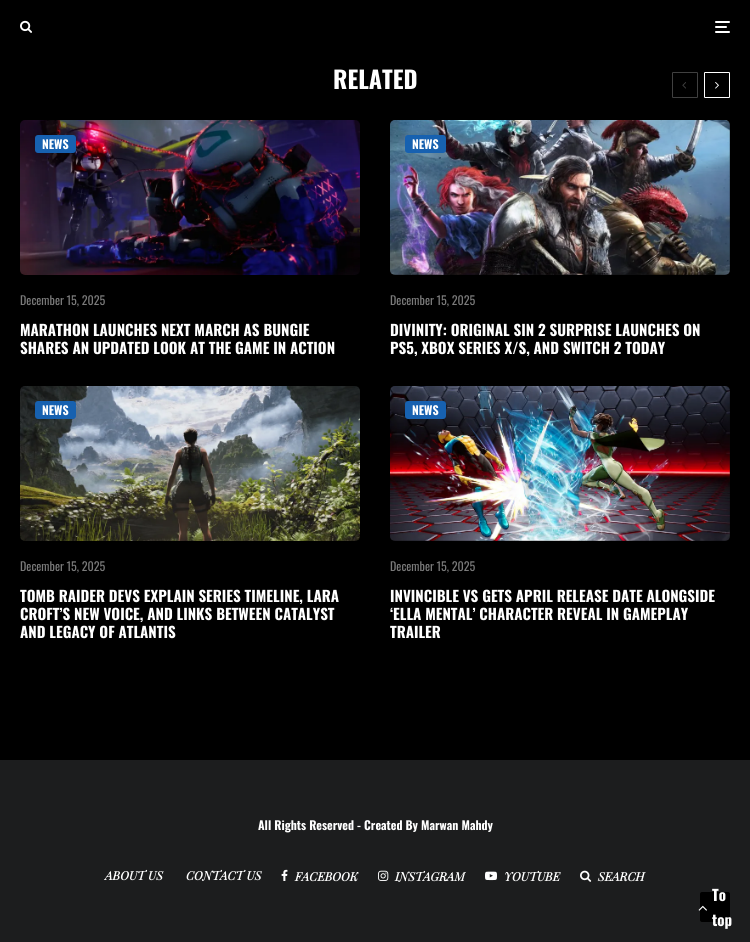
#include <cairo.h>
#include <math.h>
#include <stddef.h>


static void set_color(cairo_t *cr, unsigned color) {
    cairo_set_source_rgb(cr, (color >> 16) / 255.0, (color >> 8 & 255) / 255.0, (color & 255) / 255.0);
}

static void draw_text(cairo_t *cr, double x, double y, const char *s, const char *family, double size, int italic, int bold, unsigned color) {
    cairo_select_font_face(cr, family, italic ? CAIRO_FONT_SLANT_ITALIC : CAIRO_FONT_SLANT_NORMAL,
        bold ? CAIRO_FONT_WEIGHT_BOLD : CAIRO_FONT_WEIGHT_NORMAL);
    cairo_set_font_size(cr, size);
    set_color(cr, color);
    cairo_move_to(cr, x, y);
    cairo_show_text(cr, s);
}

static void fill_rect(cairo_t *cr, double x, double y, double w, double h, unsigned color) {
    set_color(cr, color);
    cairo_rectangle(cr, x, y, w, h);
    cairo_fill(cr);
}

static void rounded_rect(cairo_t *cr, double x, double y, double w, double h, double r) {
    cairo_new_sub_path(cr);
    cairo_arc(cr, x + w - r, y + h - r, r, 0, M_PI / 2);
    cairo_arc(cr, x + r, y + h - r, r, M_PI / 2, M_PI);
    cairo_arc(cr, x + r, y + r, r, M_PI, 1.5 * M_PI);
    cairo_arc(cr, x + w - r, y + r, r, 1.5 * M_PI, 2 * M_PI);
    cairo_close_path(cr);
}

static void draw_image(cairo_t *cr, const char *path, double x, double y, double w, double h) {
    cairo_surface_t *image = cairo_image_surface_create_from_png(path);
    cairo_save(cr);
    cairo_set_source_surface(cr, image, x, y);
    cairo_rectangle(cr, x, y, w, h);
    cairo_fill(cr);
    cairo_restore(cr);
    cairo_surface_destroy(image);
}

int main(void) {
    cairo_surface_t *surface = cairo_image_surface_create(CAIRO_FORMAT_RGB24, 750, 942);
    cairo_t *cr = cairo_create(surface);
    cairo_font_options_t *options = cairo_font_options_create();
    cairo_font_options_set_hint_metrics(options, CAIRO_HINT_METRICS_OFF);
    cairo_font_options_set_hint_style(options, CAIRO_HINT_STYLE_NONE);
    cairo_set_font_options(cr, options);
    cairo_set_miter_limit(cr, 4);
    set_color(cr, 0x000000);
    cairo_paint(cr);
    draw_image(cr, "assets/img1.png", 20, 20, 12, 13);
    set_color(cr, 0xFFFFFF);
    rounded_rect(cr, 715, 26, 12, 2, 1);
    cairo_fill(cr);
    rounded_rect(cr, 715, 21, 15, 2, 1);
    cairo_fill(cr);
    rounded_rect(cr, 715, 31, 15, 2, 1);
    cairo_fill(cr);
    draw_text(cr, 333, 89, "RELATED", "Oswald", 24, 0, 1, 0xFFFFFF);
    rounded_rect(cr, 672.5, 72.5, 25, 25, 0.5);
    set_color(cr, 0x404040);
    cairo_set_line_width(cr, 1);
    cairo_stroke(cr);
    draw_image(cr, "assets/img2.png", 682, 82, 4, 7);
    rounded_rect(cr, 704.5, 72.5, 25, 25, 0.5);
    set_color(cr, 0xFFFFFF);
    cairo_stroke(cr);
    draw_image(cr, "assets/img3.png", 715, 82, 4, 7);
    draw_image(cr, "assets/img4.png", 20, 120, 340, 155);
    set_color(cr, 0x1761B0);
    rounded_rect(cr, 35, 135, 41, 18, 3);
    cairo_fill(cr);
    draw_text(cr, 42, 149, "NEWS", "Oswald", 12, 0, 1, 0xFFFFFF);
    draw_text(cr, 20, 305, "December 15, 2025", "Oswald", 12, 0, 0, 0x7B7B7B);
    draw_text(cr, 20, 336, "MARATHON LAUNCHES NEXT MARCH AS BUNGIE", "Oswald", 15, 0, 1, 0xFFFFFF);
    draw_text(cr, 20, 354, "SHARES AN UPDATED LOOK AT THE GAME IN ACTION", "Oswald", 15, 0, 1, 0xFFFFFF);
    set_color(cr, 0x0C0C0C);
    rounded_rect(cr, 390, 120, 340, 155, 5);
    cairo_fill(cr);
    draw_image(cr, "assets/img5.png", 390, 120, 340, 155);
    set_color(cr, 0x1761B0);
    rounded_rect(cr, 405, 135, 41, 18, 3);
    cairo_fill(cr);
    draw_text(cr, 412, 149, "NEWS", "Oswald", 12, 0, 1, 0xFFFFFF);
    draw_text(cr, 390, 305, "December 15, 2025", "Oswald", 12, 0, 0, 0x7B7B7B);
    draw_text(cr, 390, 336, "DIVINITY: ORIGINAL SIN 2 SURPRISE LAUNCHES ON", "Oswald", 15, 0, 1, 0xFFFFFF);
    draw_text(cr, 390, 354, "PS5, XBOX SERIES X/S, AND SWITCH 2 TODAY", "Oswald", 15, 0, 1, 0xFFFFFF);
    draw_image(cr, "assets/img6.png", 20, 386, 340, 155);
    set_color(cr, 0x1761B0);
    rounded_rect(cr, 35, 401, 41, 18, 3);
    cairo_fill(cr);
    draw_text(cr, 42, 415, "NEWS", "Oswald", 12, 0, 1, 0xFFFFFF);
    draw_text(cr, 20, 571, "December 15, 2025", "Oswald", 12, 0, 0, 0x7B7B7B);
    draw_text(cr, 20, 602, "TOMB RAIDER DEVS EXPLAIN SERIES TIMELINE, LARA", "Oswald", 15, 0, 1, 0xFFFFFF);
    draw_text(cr, 20, 620, "CROFT’S NEW VOICE, AND LINKS BETWEEN CATALYST", "Oswald", 15, 0, 1, 0xFFFFFF);
    draw_text(cr, 20, 638, "AND LEGACY OF ATLANTIS", "Oswald", 15, 0, 1, 0xFFFFFF);
    set_color(cr, 0x0C0C0C);
    rounded_rect(cr, 390, 386, 340, 155, 5);
    cairo_fill(cr);
    draw_image(cr, "assets/img7.png", 390, 386, 340, 155);
    set_color(cr, 0x1761B0);
    rounded_rect(cr, 405, 401, 41, 18, 3);
    cairo_fill(cr);
    draw_text(cr, 412, 415, "NEWS", "Oswald", 12, 0, 1, 0xFFFFFF);
    draw_text(cr, 390, 571, "December 15, 2025", "Oswald", 12, 0, 0, 0x7B7B7B);
    draw_text(cr, 390, 602, "INVINCIBLE VS GETS APRIL RELEASE DATE ALONGSIDE", "Oswald", 15, 0, 1, 0xFFFFFF);
    draw_text(cr, 390, 620, "‘ELLA MENTAL’ CHARACTER REVEAL IN GAMEPLAY", "Oswald", 15, 0, 1, 0xFFFFFF);
    draw_text(cr, 390, 638, "TRAILER", "Oswald", 15, 0, 1, 0xFFFFFF);
    fill_rect(cr, 0, 760, 750, 182, 0x1C1D1E);
    draw_text(cr, 258, 830, "All Rights Reserved - Created By Marwan Mahdy", "Oswald", 12, 0, 1, 0xFFFFFF);
    draw_text(cr, 105, 880, "ABOUT US", "Playfair Display", 12, 1, 1, 0xFFFFFF);
    draw_text(cr, 186, 880, "CONTACT US", "Playfair Display", 12, 1, 1, 0xFFFFFF);
    draw_image(cr, "assets/img8.png", 281, 869, 7, 12);
    draw_text(cr, 295, 881, "FACEBOOK", "Playfair Display", 12, 1, 1, 0xFFFFFF);
    draw_image(cr, "assets/img9.png", 378, 870, 11, 11);
    draw_text(cr, 395, 881, "INSTAGRAM", "Playfair Display", 12, 1, 1, 0xFFFFFF);
    draw_image(cr, "assets/img10.png", 485, 871, 12, 10);
    draw_text(cr, 504, 881, "YOUTUBE", "Playfair Display", 12, 1, 1, 0xFFFFFF);
    draw_image(cr, "assets/img11.png", 580, 870, 12, 12);
    draw_text(cr, 598, 881, "SEARCH", "Playfair Display", 12, 1, 1, 0xFFFFFF);
    set_color(cr, 0x000000);
    rounded_rect(cr, 700, 892, 30, 30, 2);
    cairo_fill(cr);
    draw_image(cr, "assets/img12.png", 698, 905, 9, 6);
    draw_text(cr, 712, 901, "To", "Oswald", 15, 0, 1, 0xFFFFFF);
    draw_text(cr, 712, 926, "top", "Oswald", 15, 0, 1, 0xFFFFFF);
    cairo_surface_write_to_png(surface, "output.png");
    cairo_font_options_destroy(options);
    cairo_destroy(cr);
    cairo_surface_destroy(surface);
    return 0;
}
